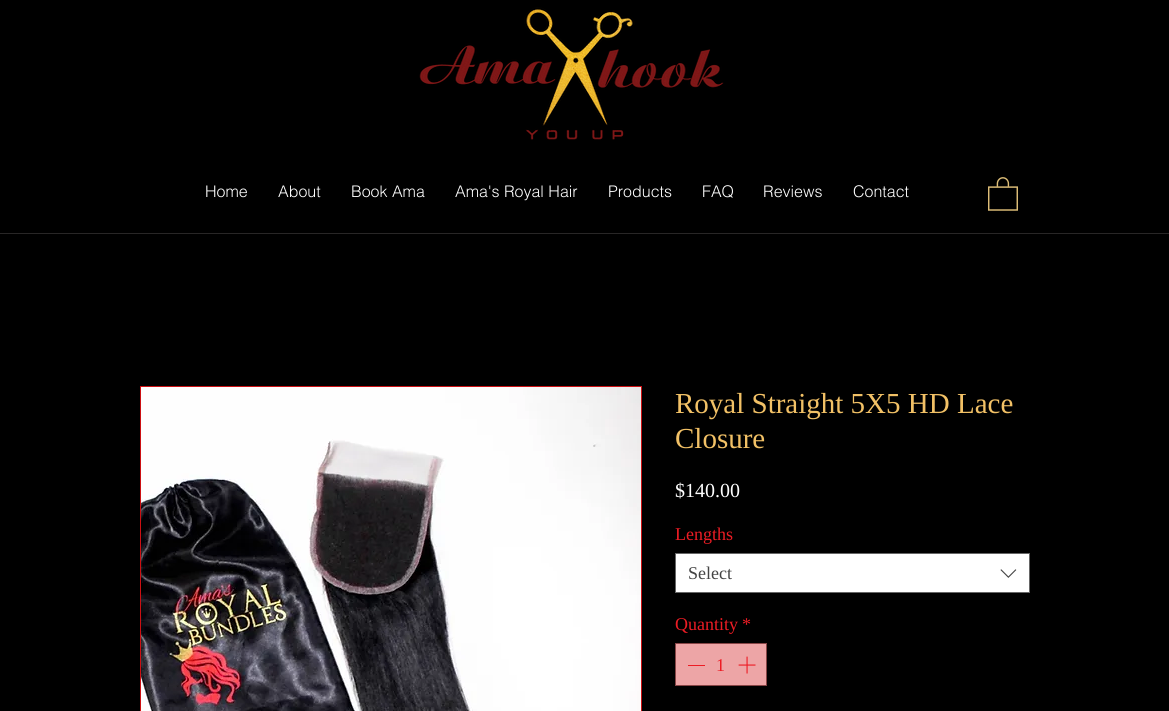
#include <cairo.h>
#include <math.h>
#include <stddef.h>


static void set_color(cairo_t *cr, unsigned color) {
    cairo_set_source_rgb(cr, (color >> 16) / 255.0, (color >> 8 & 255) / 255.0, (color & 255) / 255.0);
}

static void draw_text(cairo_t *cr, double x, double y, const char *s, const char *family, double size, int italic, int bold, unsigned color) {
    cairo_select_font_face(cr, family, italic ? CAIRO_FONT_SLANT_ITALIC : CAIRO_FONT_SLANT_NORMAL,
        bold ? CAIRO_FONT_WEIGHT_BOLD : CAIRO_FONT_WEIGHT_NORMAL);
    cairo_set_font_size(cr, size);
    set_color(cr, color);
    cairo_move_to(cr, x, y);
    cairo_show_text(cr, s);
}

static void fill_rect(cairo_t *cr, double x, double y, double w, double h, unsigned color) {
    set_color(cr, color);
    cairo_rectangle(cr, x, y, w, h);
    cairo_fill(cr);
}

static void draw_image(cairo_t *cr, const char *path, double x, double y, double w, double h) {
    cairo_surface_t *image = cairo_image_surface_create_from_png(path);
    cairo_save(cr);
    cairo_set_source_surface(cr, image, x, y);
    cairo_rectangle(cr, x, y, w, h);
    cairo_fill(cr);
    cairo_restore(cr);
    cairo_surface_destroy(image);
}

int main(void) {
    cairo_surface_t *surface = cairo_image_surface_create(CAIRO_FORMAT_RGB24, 1169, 711);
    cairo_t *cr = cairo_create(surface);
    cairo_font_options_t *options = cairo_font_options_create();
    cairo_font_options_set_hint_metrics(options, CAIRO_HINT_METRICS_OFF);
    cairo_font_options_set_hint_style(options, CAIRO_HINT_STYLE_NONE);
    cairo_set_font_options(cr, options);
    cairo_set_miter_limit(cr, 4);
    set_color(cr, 0x000000);
    cairo_paint(cr);
    draw_image(cr, "assets/img1.png", 419, 7, 305, 133);
    draw_text(cr, 205, 197, "Home", "helvetica Light", 16, 0, 0, 0xFFFFFF);
    draw_text(cr, 278, 197, "About", "helvetica Light", 16, 0, 0, 0xFFFFFF);
    draw_text(cr, 351, 197, "Book Ama", "helvetica Light", 16, 0, 0, 0xFFFFFF);
    draw_text(cr, 455, 197, "Ama's Royal Hair", "helvetica Light", 16, 0, 0, 0xFFFFFF);
    draw_text(cr, 608, 197, "Products", "helvetica Light", 16, 0, 0, 0xFFFFFF);
    draw_text(cr, 702, 197, "FAQ", "helvetica Light", 16, 0, 0, 0xFFFFFF);
    draw_text(cr, 763, 197, "Reviews", "helvetica Light", 16, 0, 0, 0xFFFFFF);
    draw_text(cr, 853, 197, "Contact", "helvetica Light", 16, 0, 0, 0xFFFFFF);
    draw_image(cr, "assets/img2.png", 988, 177, 30, 34);
    fill_rect(cr, 0, 233, 1169, 1, 0x282626);
    cairo_rectangle(cr, 140.5, 386.5, 501, 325);
    set_color(cr, 0xCC1013);
    cairo_set_line_width(cr, 1);
    cairo_stroke(cr);
    draw_image(cr, "assets/img3.png", 141, 387, 500, 324);
    draw_text(cr, 675, 413, "Royal Straight 5X5 HD Lace", "Liberation Serif", 29, 0, 0, 0xF2C166);
    draw_text(cr, 675, 448, "Closure", "Liberation Serif", 29, 0, 0, 0xF2C166);
    draw_text(cr, 675, 497, "$140.00", "Liberation Serif", 20, 0, 0, 0xFFFFFF);
    draw_text(cr, 675, 540, "Lengths", "Liberation Serif", 18, 0, 0, 0xED1C24);
    set_color(cr, 0xFFFFFF);
    cairo_rectangle(cr, 675.5, 553.5, 354, 39);
    cairo_fill_preserve(cr);
    set_color(cr, 0x666666);
    cairo_stroke(cr);
    draw_text(cr, 688, 579, "Select", "Liberation Serif", 18, 0, 0, 0x444444);
    draw_image(cr, "assets/img4.png", 1000, 569, 17, 9);
    draw_text(cr, 675, 630, "Quantity", "Liberation Serif", 18, 0, 0, 0xED1C24);
    draw_text(cr, 742, 630, "*", "Liberation Serif", 18, 0, 0, 0xED1C24);
    set_color(cr, 0xEDA5A6);
    cairo_rectangle(cr, 675.5, 643.5, 91, 42);
    cairo_fill_preserve(cr);
    set_color(cr, 0x884546);
    cairo_stroke(cr);
    fill_rect(cr, 688, 665, 17, 1, 0xED1C24);
    draw_text(cr, 716, 671, "1", "Liberation Serif", 18, 0, 0, 0xED1C24);
    draw_image(cr, "assets/img5.png", 738, 656, 18, 18);
    cairo_surface_write_to_png(surface, "output.png");
    cairo_font_options_destroy(options);
    cairo_destroy(cr);
    cairo_surface_destroy(surface);
    return 0;
}
